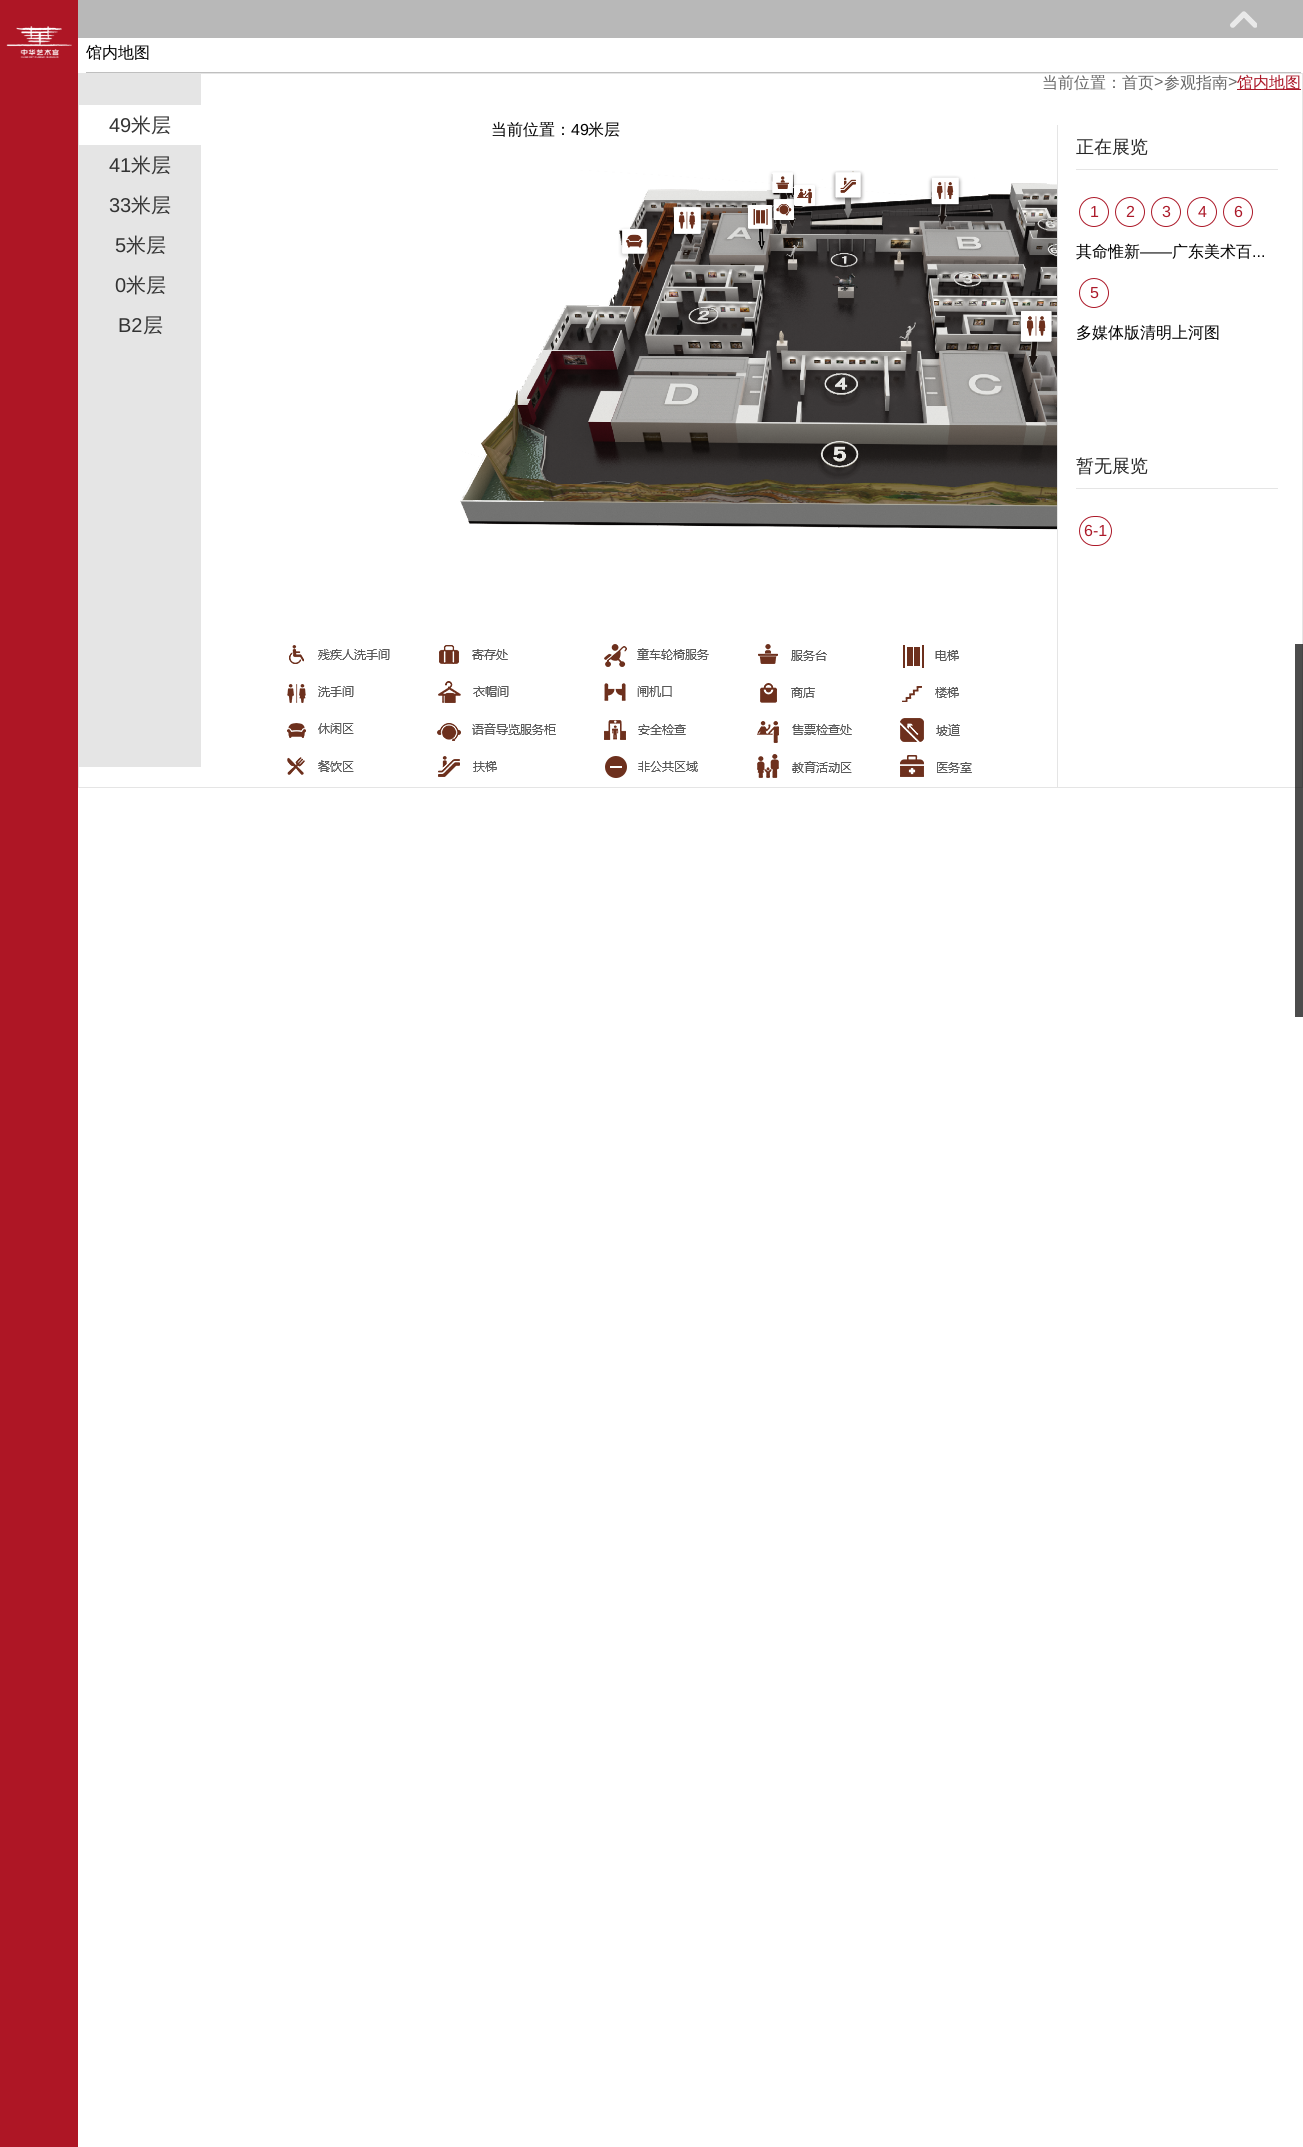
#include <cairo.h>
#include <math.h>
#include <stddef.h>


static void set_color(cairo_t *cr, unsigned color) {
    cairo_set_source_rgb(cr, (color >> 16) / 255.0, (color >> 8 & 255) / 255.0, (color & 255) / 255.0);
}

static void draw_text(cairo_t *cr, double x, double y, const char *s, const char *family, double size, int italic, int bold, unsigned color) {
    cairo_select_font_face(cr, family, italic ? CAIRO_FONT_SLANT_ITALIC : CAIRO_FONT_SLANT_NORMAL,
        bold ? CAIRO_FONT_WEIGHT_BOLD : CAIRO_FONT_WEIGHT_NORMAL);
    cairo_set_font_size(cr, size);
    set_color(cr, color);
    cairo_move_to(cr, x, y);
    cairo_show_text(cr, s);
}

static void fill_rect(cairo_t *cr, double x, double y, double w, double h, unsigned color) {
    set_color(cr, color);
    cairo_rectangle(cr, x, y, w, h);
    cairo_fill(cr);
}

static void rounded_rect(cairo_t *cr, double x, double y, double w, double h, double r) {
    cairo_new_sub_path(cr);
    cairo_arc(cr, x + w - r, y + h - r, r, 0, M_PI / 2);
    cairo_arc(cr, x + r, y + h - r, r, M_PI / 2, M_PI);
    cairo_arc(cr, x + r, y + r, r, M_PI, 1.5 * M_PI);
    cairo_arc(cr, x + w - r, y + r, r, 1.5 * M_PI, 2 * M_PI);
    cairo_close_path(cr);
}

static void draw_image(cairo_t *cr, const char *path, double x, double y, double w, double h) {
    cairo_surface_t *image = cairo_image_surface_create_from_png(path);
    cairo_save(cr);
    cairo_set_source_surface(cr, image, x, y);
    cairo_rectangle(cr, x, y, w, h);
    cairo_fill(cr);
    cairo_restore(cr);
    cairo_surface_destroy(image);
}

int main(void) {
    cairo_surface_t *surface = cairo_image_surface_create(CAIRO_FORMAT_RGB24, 1303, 2147);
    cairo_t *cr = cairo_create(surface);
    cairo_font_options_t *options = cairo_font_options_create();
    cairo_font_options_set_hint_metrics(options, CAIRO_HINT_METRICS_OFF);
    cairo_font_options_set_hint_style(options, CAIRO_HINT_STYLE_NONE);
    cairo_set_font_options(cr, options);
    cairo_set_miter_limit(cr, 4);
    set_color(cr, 0xFFFFFF);
    cairo_paint(cr);
    fill_rect(cr, 0, 0, 78, 2147, 0xAE1625);
    draw_image(cr, "assets/img1.png", 6, 26, 66, 32);
    fill_rect(cr, 78, 0, 1225, 38, 0xB8B8B8);
    draw_image(cr, "assets/img2.png", 1230, 11, 27, 17);
    fill_rect(cr, 86, 72, 1215, 1, 0xBFBFBF);
    draw_text(cr, 86, 58, "馆内地图", "WenQuanYi Zen Hei Medium", 16, 0, 0, 0x000000);
    cairo_rectangle(cr, 78.5, 73.5, 1224, 714);
    set_color(cr, 0xE5E5E5);
    cairo_set_line_width(cr, 1);
    cairo_stroke(cr);
    draw_text(cr, 1042, 88, "当前位置：首页", "WenQuanYi Zen Hei Medium", 16, 0, 0, 0x666666);
    draw_text(cr, 1154, 87, ">", "Liberation Sans", 16, 0, 0, 0x666666);
    draw_text(cr, 1164, 88, "参观指南", "WenQuanYi Zen Hei Medium", 16, 0, 0, 0x666666);
    draw_text(cr, 1228, 87, ">", "Liberation Sans", 16, 0, 0, 0x666666);
    fill_rect(cr, 1237, 89, 64, 1, 0xAC1929);
    draw_text(cr, 1237, 88, "馆内地图", "WenQuanYi Zen Hei Medium", 16, 0, 0, 0xAC1929);
    fill_rect(cr, 79, 74, 122, 693, 0xE5E5E5);
    fill_rect(cr, 79, 105, 122, 40, 0xFFFFFF);
    draw_text(cr, 109, 132, "49", "Liberation Sans", 20, 0, 0, 0x333333);
    draw_text(cr, 131, 132, "米层", "WenQuanYi Zen Hei Medium", 20, 0, 0, 0x333333);
    draw_text(cr, 109, 172, "41", "Liberation Sans", 20, 0, 0, 0x333333);
    draw_text(cr, 131, 172, "米层", "WenQuanYi Zen Hei Medium", 20, 0, 0, 0x333333);
    draw_text(cr, 109, 212, "33", "Liberation Sans", 20, 0, 0, 0x333333);
    draw_text(cr, 131, 212, "米层", "WenQuanYi Zen Hei Medium", 20, 0, 0, 0x333333);
    draw_text(cr, 115, 252, "5", "Liberation Sans", 20, 0, 0, 0x333333);
    draw_text(cr, 126, 252, "米层", "WenQuanYi Zen Hei Medium", 20, 0, 0, 0x333333);
    draw_text(cr, 115, 292, "0", "Liberation Sans", 20, 0, 0, 0x333333);
    draw_text(cr, 126, 292, "米层", "WenQuanYi Zen Hei Medium", 20, 0, 0, 0x333333);
    draw_text(cr, 118, 332, "B2", "Liberation Sans", 20, 0, 0, 0x333333);
    draw_text(cr, 143, 332, "层", "WenQuanYi Zen Hei Medium", 20, 0, 0, 0x333333);
    draw_text(cr, 491, 135, "当前位置：", "WenQuanYi Zen Hei Medium", 16, 0, 0, 0x000000);
    draw_text(cr, 571, 135, "49", "Liberation Sans", 16, 0, 0, 0x000000);
    draw_text(cr, 588, 135, "米层", "WenQuanYi Zen Hei Medium", 16, 0, 0, 0x000000);
    draw_image(cr, "assets/img3.png", 460, 170, 597, 360);
    draw_image(cr, "assets/img4.png", 287, 644, 685, 134);
    fill_rect(cr, 1057, 125, 1, 662, 0xE5E5E5);
    fill_rect(cr, 1076, 169, 202, 1, 0xE5E5E5);
    draw_text(cr, 1076, 153, "正在展览", "WenQuanYi Zen Hei Medium", 18, 0, 0, 0x262626);
    cairo_new_path(cr);
    cairo_arc(cr, 1094, 212, 14.5, 0, 2 * M_PI);
    set_color(cr, 0xAC1929);
    cairo_stroke(cr);
    draw_text(cr, 1090, 217, "1", "Liberation Sans", 16, 0, 0, 0xAC1929);
    cairo_new_path(cr);
    cairo_arc(cr, 1130, 212, 14.5, 0, 2 * M_PI);
    cairo_stroke(cr);
    draw_text(cr, 1126, 217, "2", "Liberation Sans", 16, 0, 0, 0xAC1929);
    cairo_new_path(cr);
    cairo_arc(cr, 1166, 212, 14.5, 0, 2 * M_PI);
    cairo_stroke(cr);
    draw_text(cr, 1162, 217, "3", "Liberation Sans", 16, 0, 0, 0xAC1929);
    cairo_new_path(cr);
    cairo_arc(cr, 1202, 212, 14.5, 0, 2 * M_PI);
    cairo_stroke(cr);
    draw_text(cr, 1198, 217, "4", "Liberation Sans", 16, 0, 0, 0xAC1929);
    cairo_new_path(cr);
    cairo_arc(cr, 1238, 212, 14.5, 0, 2 * M_PI);
    cairo_stroke(cr);
    draw_text(cr, 1234, 217, "6", "Liberation Sans", 16, 0, 0, 0xAC1929);
    draw_text(cr, 1076, 257, "其命惟新", "WenQuanYi Zen Hei Medium", 16, 0, 0, 0x000000);
    draw_text(cr, 1140, 257, "——", "Liberation Sans", 16, 0, 0, 0x000000);
    draw_text(cr, 1172, 257, "广东美术百", "WenQuanYi Zen Hei Medium", 16, 0, 0, 0x000000);
    draw_text(cr, 1252, 257, "...", "Liberation Sans", 16, 0, 0, 0x000000);
    cairo_new_path(cr);
    cairo_arc(cr, 1094, 293, 14.5, 0, 2 * M_PI);
    set_color(cr, 0xAC1929);
    cairo_stroke(cr);
    draw_text(cr, 1090, 298, "5", "Liberation Sans", 16, 0, 0, 0xAC1929);
    draw_text(cr, 1076, 338, "多媒体版清明上河图", "WenQuanYi Zen Hei Medium", 16, 0, 0, 0x000000);
    fill_rect(cr, 1076, 488, 202, 1, 0xE5E5E5);
    draw_text(cr, 1076, 472, "暂无展览", "WenQuanYi Zen Hei Medium", 18, 0, 0, 0x262626);
    rounded_rect(cr, 1079.5, 516.5, 32, 29, 14.5);
    set_color(cr, 0xAC1929);
    cairo_stroke(cr);
    draw_text(cr, 1084, 536, "6-1", "Liberation Sans", 16, 0, 0, 0xAC1929);
    cairo_set_source_rgba(cr, 0, 0, 0, 0.7);
    cairo_rectangle(cr, 1295, 644, 8, 373);
    cairo_fill(cr);
    cairo_surface_write_to_png(surface, "output.png");
    cairo_font_options_destroy(options);
    cairo_destroy(cr);
    cairo_surface_destroy(surface);
    return 0;
}
